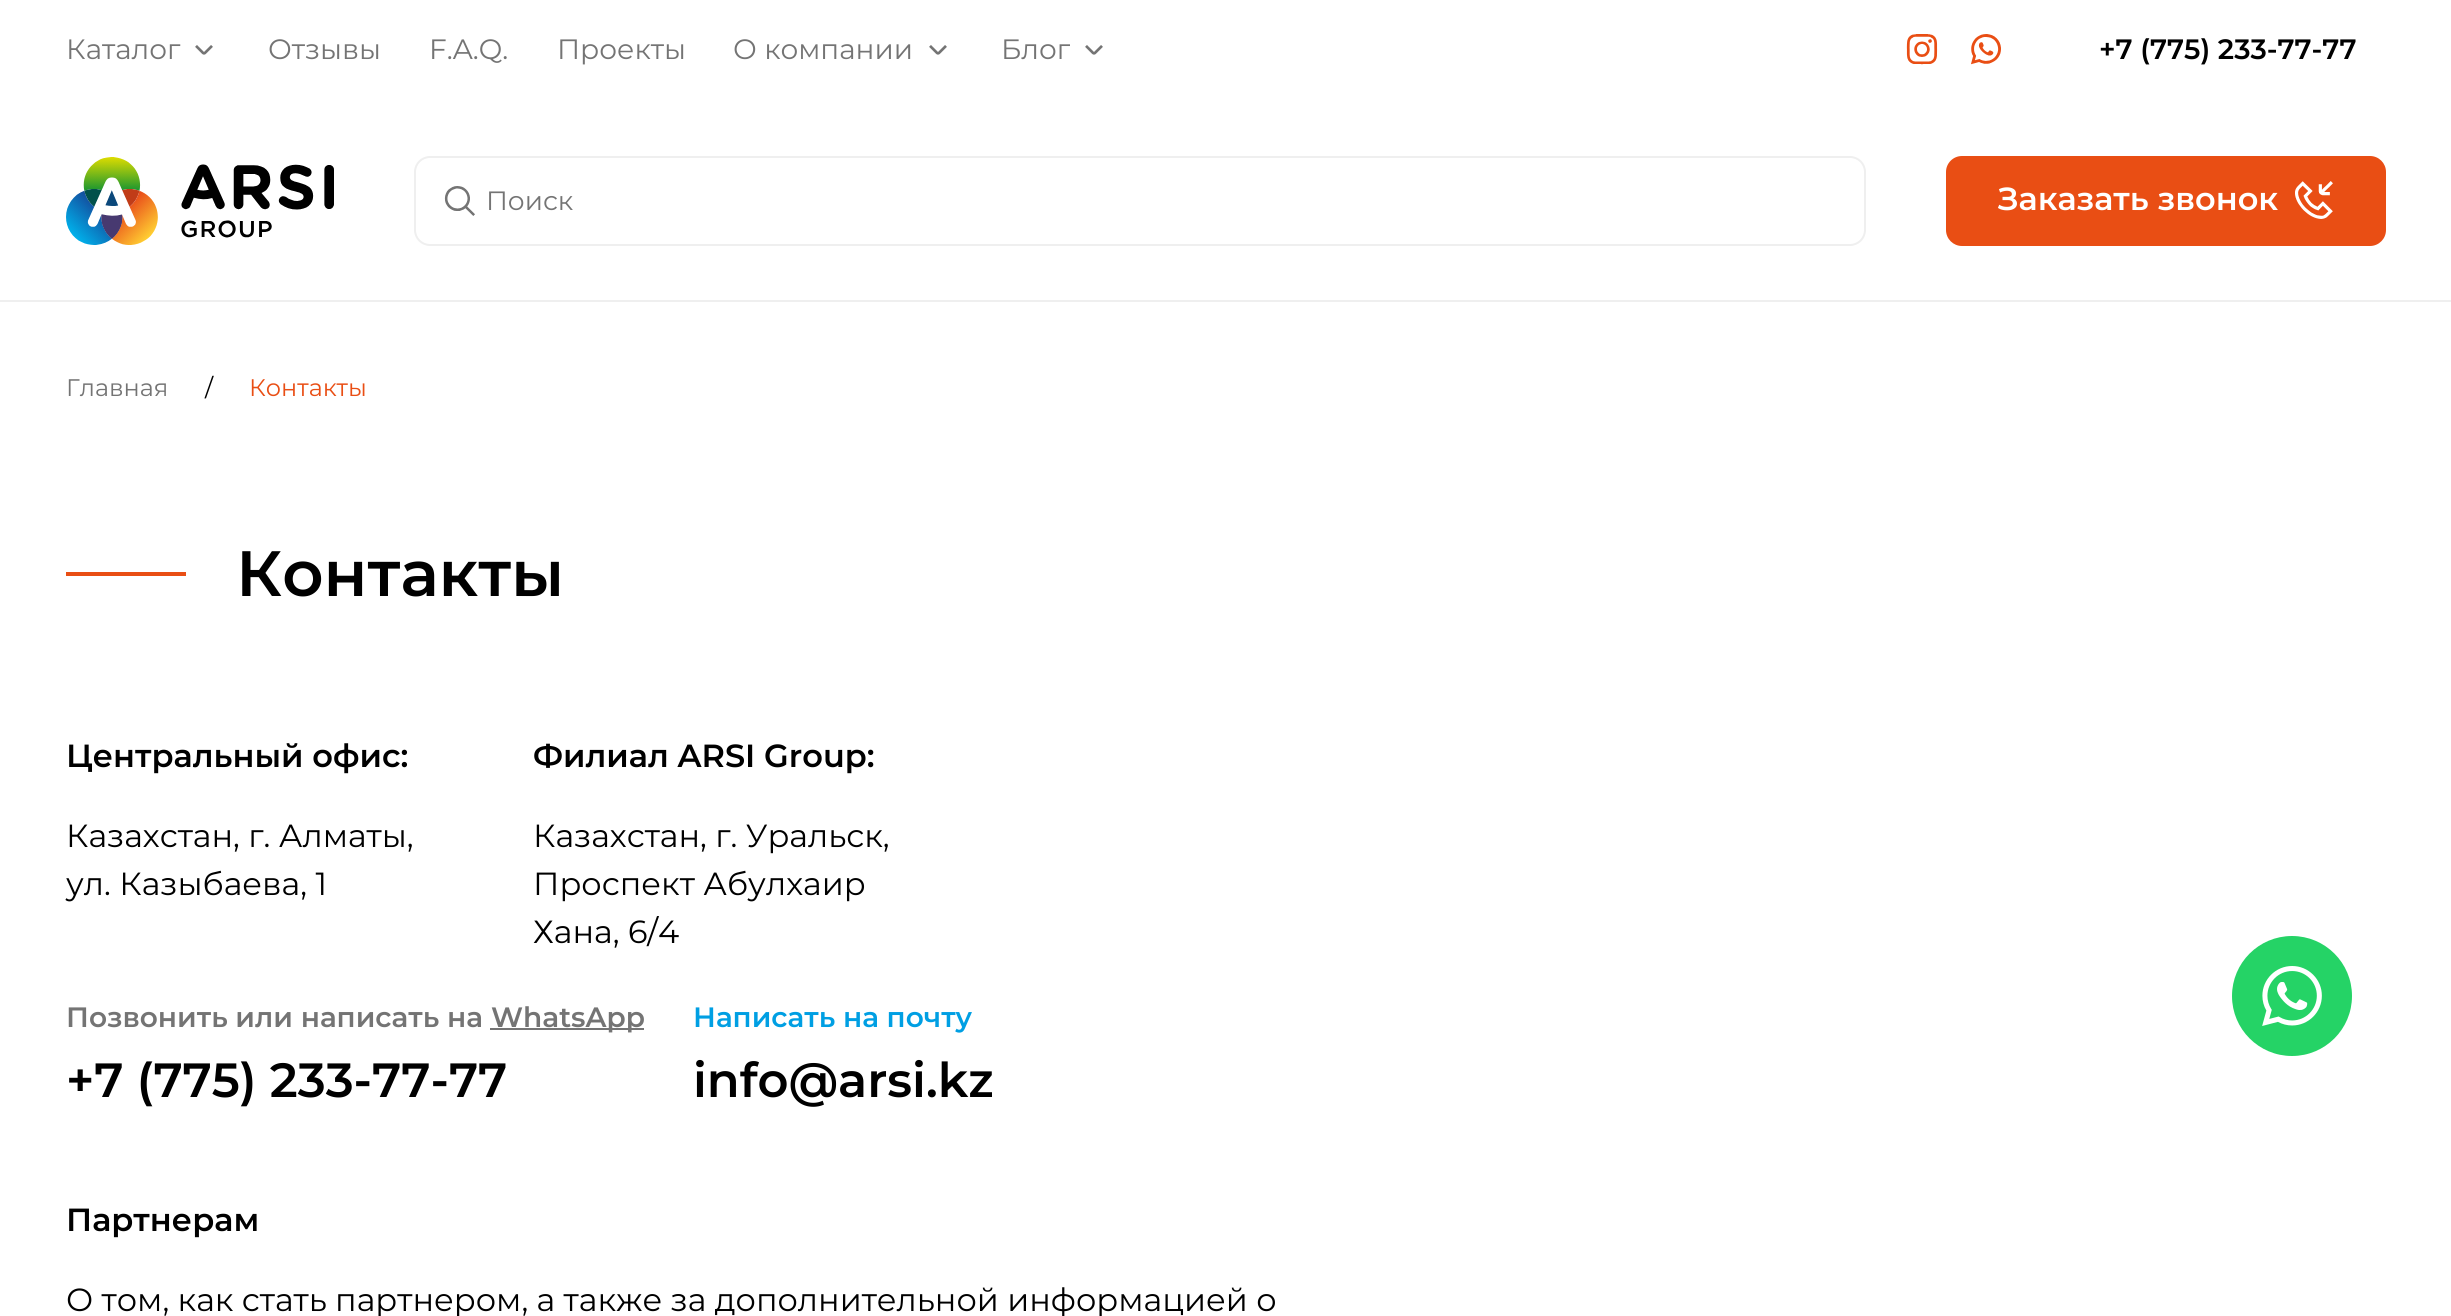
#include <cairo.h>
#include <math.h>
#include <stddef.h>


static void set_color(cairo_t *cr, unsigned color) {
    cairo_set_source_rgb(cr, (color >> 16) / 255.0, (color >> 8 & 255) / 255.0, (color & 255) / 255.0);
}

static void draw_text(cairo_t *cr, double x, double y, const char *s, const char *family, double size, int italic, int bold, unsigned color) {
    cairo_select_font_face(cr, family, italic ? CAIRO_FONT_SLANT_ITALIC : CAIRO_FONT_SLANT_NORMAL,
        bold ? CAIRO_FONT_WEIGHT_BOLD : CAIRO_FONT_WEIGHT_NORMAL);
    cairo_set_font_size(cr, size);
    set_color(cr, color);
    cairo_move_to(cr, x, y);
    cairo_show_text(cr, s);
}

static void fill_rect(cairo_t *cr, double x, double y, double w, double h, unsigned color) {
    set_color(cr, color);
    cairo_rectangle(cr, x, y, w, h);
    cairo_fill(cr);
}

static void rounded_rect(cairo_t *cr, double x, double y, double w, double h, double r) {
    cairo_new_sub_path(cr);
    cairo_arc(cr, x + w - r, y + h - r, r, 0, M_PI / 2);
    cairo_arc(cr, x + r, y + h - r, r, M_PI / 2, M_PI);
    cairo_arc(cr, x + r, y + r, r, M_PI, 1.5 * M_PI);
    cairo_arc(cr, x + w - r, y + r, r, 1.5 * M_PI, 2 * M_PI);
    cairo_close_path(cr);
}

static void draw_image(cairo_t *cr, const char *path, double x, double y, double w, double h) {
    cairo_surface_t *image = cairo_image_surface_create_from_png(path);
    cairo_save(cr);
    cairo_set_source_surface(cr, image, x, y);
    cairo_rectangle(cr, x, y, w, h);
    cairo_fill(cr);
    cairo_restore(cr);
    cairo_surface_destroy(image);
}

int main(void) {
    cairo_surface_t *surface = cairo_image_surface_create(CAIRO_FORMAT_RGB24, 2451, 1316);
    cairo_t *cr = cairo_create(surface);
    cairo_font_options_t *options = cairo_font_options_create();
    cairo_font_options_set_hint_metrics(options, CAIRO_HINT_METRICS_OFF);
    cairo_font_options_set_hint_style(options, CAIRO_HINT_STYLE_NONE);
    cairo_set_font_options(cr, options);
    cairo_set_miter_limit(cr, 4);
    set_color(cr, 0xFFFFFF);
    cairo_paint(cr);
    fill_rect(cr, 0, 300, 2451, 2, 0xEFEFEF);
    draw_text(cr, 66, 59, "Каталог", "Montserrat", 28, 0, 0, 0x747474);
    draw_image(cr, "assets/img1.png", 195, 45, 18, 10);
    draw_text(cr, 268, 59, "Отзывы", "Montserrat", 28, 0, 0, 0x747474);
    draw_text(cr, 429, 59, "F.A.Q.", "Montserrat", 28, 0, 0, 0x747474);
    draw_text(cr, 557, 59, "Проекты", "Montserrat", 28, 0, 0, 0x747474);
    draw_text(cr, 733, 59, "О компании", "Montserrat", 28, 0, 0, 0x747474);
    draw_image(cr, "assets/img1.png", 929, 45, 18, 10);
    draw_text(cr, 1001, 59, "Блог", "Montserrat", 28, 0, 0, 0x747474);
    draw_image(cr, "assets/img1.png", 1085, 45, 18, 10);
    draw_image(cr, "assets/img2.png", 1906, 34, 32, 31);
    draw_image(cr, "assets/img3.png", 1971, 34, 30, 31);
    draw_text(cr, 2099, 59, "+7 (775) 233-77-77", "Montserrat SemiBold", 28, 0, 0, 0x000000);
    draw_image(cr, "assets/img4.png", 66, 157, 268, 88);
    rounded_rect(cr, 415, 157, 1450, 88, 15);
    set_color(cr, 0xEFEFEF);
    cairo_stroke(cr);
    draw_image(cr, "assets/img5.png", 444, 186, 31, 30);
    draw_text(cr, 486, 210, "Поиск", "Montserrat", 26.5, 0, 0, 0x747474);
    set_color(cr, 0xE94E14);
    rounded_rect(cr, 1946, 156, 440, 90, 16);
    cairo_fill(cr);
    draw_text(cr, 1998, 210, "Заказать звонок", "Montserrat SemiBold", 32, 0, 0, 0xFFFFFF);
    draw_image(cr, "assets/img6.png", 2295, 181, 38, 38);
    draw_text(cr, 66, 396, "Главная", "Montserrat", 24, 0, 0, 0x747474);
    draw_text(cr, 205, 396, "/", "Montserrat", 24, 0, 0, 0x000000);
    draw_text(cr, 249, 396, "Контакты", "Montserrat", 24, 0, 0, 0xE94E14);
    fill_rect(cr, 66, 572, 120, 4, 0xE94E14);
    draw_text(cr, 236, 596, "Контакты", "Montserrat SemiBold", 64, 0, 0, 0x000000);
    draw_text(cr, 66, 767, "Центральный офис:", "Montserrat SemiBold", 32, 0, 0, 0x000000);
    draw_text(cr, 66, 847, "Казахстан, г. Алматы,", "Montserrat", 32, 0, 0, 0x000000);
    draw_text(cr, 66, 895, "ул. Казыбаева, 1", "Montserrat", 32, 0, 0, 0x000000);
    draw_text(cr, 533, 767, "Филиал ARSI Group:", "Montserrat SemiBold", 32, 0, 0, 0x000000);
    draw_text(cr, 533, 847, "Казахстан, г. Уральск,", "Montserrat", 32, 0, 0, 0x000000);
    draw_text(cr, 533, 895, "Проспект Абулхаир", "Montserrat", 32, 0, 0, 0x000000);
    draw_text(cr, 533, 943, "Хана, 6/4", "Montserrat", 32, 0, 0, 0x000000);
    draw_text(cr, 66, 1027, "Позвонить или написать на", "Montserrat SemiBold", 28, 0, 0, 0x747474);
    fill_rect(cr, 490, 1028, 154, 2, 0x747474);
    draw_text(cr, 491, 1027, "WhatsApp", "Montserrat SemiBold", 28, 0, 0, 0x747474);
    draw_text(cr, 66, 1097, "+7 (775) 233-77-77", "Montserrat SemiBold", 48, 0, 0, 0x000000);
    draw_text(cr, 693, 1027, "Написать на почту", "Montserrat SemiBold", 28, 0, 0, 0x009FE3);
    draw_text(cr, 693, 1097, "info@arsi.kz", "Montserrat SemiBold", 48, 0, 0, 0x000000);
    draw_text(cr, 66, 1231, "Партнерам", "Montserrat SemiBold", 32, 0, 0, 0x000000);
    draw_text(cr, 66, 1311, "О том, как стать партнером, а также за дополнительной информацией о", "Montserrat", 32, 0, 0, 0x000000);
    set_color(cr, 0x25D366);
    cairo_new_path(cr);
    cairo_arc(cr, 2292, 996, 60, 0, 2 * M_PI);
    cairo_fill(cr);
    draw_image(cr, "assets/img7.png", 2262, 966, 60, 60);
    cairo_surface_write_to_png(surface, "output.png");
    cairo_font_options_destroy(options);
    cairo_destroy(cr);
    cairo_surface_destroy(surface);
    return 0;
}
